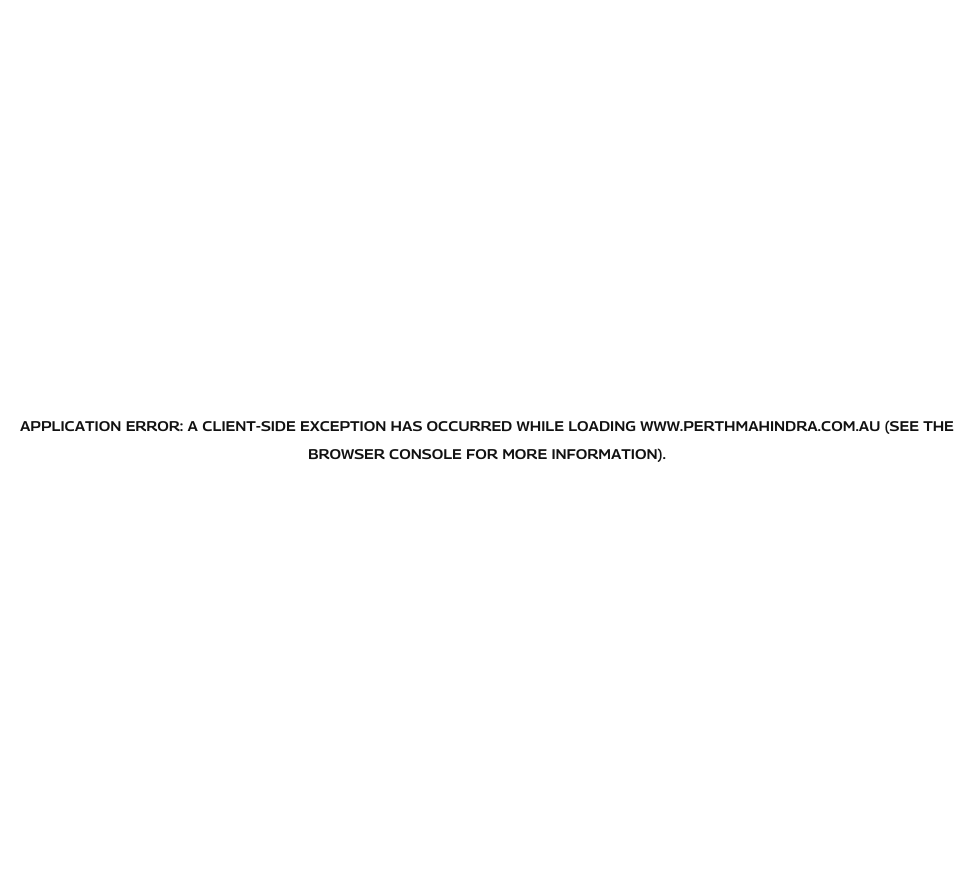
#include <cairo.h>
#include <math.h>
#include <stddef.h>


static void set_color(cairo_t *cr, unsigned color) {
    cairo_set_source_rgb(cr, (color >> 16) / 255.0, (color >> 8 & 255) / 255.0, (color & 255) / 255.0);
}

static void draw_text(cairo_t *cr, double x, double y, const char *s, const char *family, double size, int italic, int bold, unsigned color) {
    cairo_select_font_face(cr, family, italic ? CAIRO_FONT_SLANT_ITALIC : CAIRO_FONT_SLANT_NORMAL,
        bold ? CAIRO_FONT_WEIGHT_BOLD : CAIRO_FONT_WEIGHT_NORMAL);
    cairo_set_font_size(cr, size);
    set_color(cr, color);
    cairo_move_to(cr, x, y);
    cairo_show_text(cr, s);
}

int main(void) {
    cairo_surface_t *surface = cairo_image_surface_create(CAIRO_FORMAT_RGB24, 974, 880);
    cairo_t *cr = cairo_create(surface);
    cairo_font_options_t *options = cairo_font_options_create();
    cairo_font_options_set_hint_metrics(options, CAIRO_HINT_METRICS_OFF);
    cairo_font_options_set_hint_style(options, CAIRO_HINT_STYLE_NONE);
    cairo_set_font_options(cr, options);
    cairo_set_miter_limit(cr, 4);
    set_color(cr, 0xFFFFFF);
    cairo_paint(cr);
    draw_text(cr, 20, 431, "APPLICATION ERROR: A CLIENT-SIDE EXCEPTION HAS OCCURRED WHILE LOADING WWW.PERTHMAHINDRA.COM.AU (SEE THE", "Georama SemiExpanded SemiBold", 14, 0, 0, 0x111111);
    draw_text(cr, 308, 459, "BROWSER CONSOLE FOR MORE INFORMATION).", "Georama SemiExpanded SemiBold", 14, 0, 0, 0x111111);
    cairo_surface_write_to_png(surface, "output.png");
    cairo_font_options_destroy(options);
    cairo_destroy(cr);
    cairo_surface_destroy(surface);
    return 0;
}
